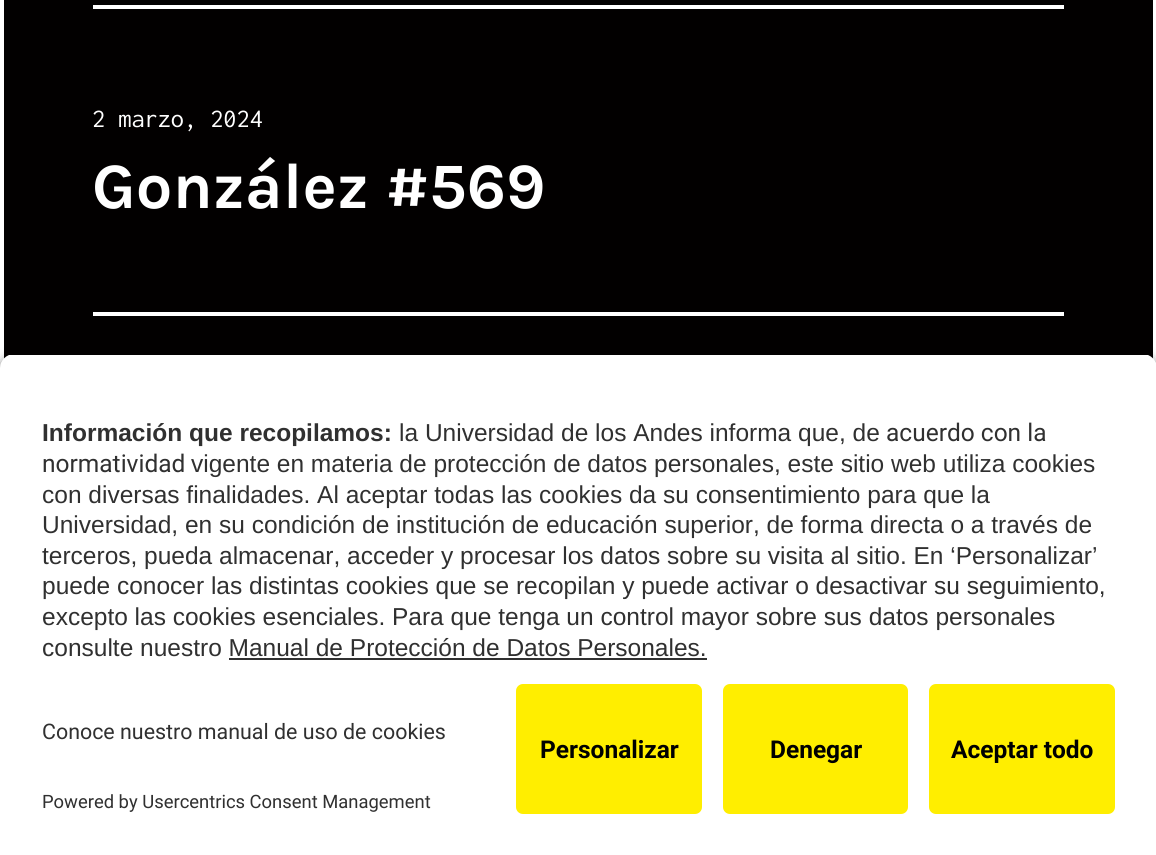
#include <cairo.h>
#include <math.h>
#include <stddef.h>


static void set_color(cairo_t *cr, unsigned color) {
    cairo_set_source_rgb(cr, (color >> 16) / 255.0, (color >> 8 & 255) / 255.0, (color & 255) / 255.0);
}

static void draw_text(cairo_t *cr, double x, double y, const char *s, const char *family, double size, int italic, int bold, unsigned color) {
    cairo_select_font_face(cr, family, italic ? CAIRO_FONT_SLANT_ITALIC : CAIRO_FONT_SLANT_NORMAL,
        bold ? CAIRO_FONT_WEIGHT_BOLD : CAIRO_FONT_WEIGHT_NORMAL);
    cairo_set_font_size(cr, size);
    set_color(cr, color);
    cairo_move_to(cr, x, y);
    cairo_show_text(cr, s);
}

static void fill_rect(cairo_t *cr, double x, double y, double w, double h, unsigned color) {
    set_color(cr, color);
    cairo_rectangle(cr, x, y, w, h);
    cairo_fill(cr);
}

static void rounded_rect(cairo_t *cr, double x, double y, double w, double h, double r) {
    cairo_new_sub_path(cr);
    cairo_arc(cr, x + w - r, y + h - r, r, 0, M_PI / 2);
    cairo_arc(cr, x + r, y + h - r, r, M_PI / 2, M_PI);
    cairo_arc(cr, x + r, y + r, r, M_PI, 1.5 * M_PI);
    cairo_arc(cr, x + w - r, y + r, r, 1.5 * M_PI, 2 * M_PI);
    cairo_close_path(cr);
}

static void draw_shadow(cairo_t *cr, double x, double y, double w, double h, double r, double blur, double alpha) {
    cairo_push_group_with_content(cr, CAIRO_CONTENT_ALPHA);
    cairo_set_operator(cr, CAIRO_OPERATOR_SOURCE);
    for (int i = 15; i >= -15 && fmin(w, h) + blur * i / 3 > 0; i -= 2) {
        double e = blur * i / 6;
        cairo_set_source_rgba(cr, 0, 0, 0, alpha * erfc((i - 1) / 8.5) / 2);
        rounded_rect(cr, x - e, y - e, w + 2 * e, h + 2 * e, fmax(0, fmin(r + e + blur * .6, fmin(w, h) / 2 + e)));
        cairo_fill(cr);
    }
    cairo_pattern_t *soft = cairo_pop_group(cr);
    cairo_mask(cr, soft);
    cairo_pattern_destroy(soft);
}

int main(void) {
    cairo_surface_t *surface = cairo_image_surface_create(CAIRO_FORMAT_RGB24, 1156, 855);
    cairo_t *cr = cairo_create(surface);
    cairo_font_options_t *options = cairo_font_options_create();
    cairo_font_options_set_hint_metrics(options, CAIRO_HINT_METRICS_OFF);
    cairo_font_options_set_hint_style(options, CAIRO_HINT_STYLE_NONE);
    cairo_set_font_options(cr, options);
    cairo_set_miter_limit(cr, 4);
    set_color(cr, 0x020000);
    cairo_paint(cr);
    cairo_rectangle(cr, 2, -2, 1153, 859);
    set_color(cr, 0xFFFFFF);
    cairo_set_line_width(cr, 4);
    cairo_stroke(cr);
    fill_rect(cr, 93, 5, 971, 4, 0xFFFFFF);
    draw_text(cr, 92, 127, "2 marzo, 2024", "Inconsolata", 26.25, 0, 0, 0xFFFFFF);
    draw_text(cr, 92, 208, "González #569", "Karla", 64.75, 0, 1, 0xFFFFFF);
    fill_rect(cr, 93, 312, 971, 4, 0xFFFFFF);
    set_color(cr, 0x000000);
    draw_shadow(cr, 0, 359, 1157, 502, 14, 6, 0.8);
    cairo_save(cr);
    cairo_new_path(cr);
    cairo_move_to(cr, 14, 354);
    cairo_line_to(cr, 1143, 354);
    cairo_curve_to(cr, 1150.5, 354, 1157, 360.5, 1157, 368);
    cairo_line_to(cr, 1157, 670);
    cairo_line_to(cr, 0, 670);
    cairo_line_to(cr, 0, 368);
    cairo_curve_to(cr, 0, 360.5, 6.5, 354, 14, 354);
    cairo_close_path(cr);
    cairo_clip(cr);
    fill_rect(cr, 0, 355, 1156, 315, 0xFFFFFF);
    cairo_restore(cr);
    draw_text(cr, 42, 441, "Información que recopilamos:", "Liberation Sans", 24.5, 0, 1, 0x303030);
    draw_text(cr, 399, 441, "la Universidad de los Andes informa que, de", "Liberation Sans", 24.5, 0, 0, 0x303030);
    draw_text(cr, 886, 441, "acuerdo con la", "Roboto", 24.5, 0, 0, 0x303030);
    draw_text(cr, 42, 472, "normatividad", "Roboto", 24.5, 0, 0, 0x303030);
    draw_text(cr, 191, 472, "vigente en materia de protección de datos personales, este sitio web utiliza cookies", "Liberation Sans", 24.5, 0, 0, 0x303030);
    draw_text(cr, 42, 503, "con diversas finalidades. Al aceptar todas las cookies da su consentimiento para que la", "Liberation Sans", 24.5, 0, 0, 0x303030);
    draw_text(cr, 42, 533, "Universidad, en su condición de institución de educación superior, de forma directa o a través de", "Liberation Sans", 24.5, 0, 0, 0x303030);
    draw_text(cr, 42, 564, "terceros, pueda almacenar, acceder y procesar los datos sobre su visita al sitio. En ‘Personalizar’", "Liberation Sans", 24.5, 0, 0, 0x303030);
    draw_text(cr, 42, 594, "puede conocer las distintas cookies que se recopilan y puede activar o desactivar su seguimiento,", "Liberation Sans", 24.5, 0, 0, 0x303030);
    draw_text(cr, 42, 625, "excepto las cookies esenciales. Para que tenga un control mayor sobre sus datos personales", "Liberation Sans", 24.5, 0, 0, 0x303030);
    draw_text(cr, 42, 656, "consulte nuestro Manual de Protección de Datos Personales.", "Liberation Sans", 24.5, 0, 0, 0x303030);
    fill_rect(cr, 229, 658, 478, 2, 0x303030);
    fill_rect(cr, 0, 670, 1156, 185, 0xFFFFFF);
    draw_text(cr, 42, 739, "Conoce nuestro manual de uso de cookies", "Roboto", 21.4, 0, 0, 0x303030);
    draw_text(cr, 42, 808, "Powered by Usercentrics Consent Management", "Roboto", 18.4, 0, 0, 0x303030);
    set_color(cr, 0xFFEE00);
    rounded_rect(cr, 516, 684, 186, 130, 7);
    cairo_fill(cr);
    draw_text(cr, 540, 758, "Personalizar", "Roboto", 24.5, 0, 1, 0x000000);
    set_color(cr, 0xFFEE00);
    rounded_rect(cr, 723, 684, 185, 130, 7);
    cairo_fill(cr);
    draw_text(cr, 770, 758, "Denegar", "Roboto", 24.5, 0, 1, 0x000000);
    set_color(cr, 0xFFEE00);
    rounded_rect(cr, 929, 684, 186, 130, 7);
    cairo_fill(cr);
    draw_text(cr, 951, 758, "Aceptar todo", "Roboto", 24.5, 0, 1, 0x000000);
    cairo_surface_write_to_png(surface, "output.png");
    cairo_font_options_destroy(options);
    cairo_destroy(cr);
    cairo_surface_destroy(surface);
    return 0;
}
